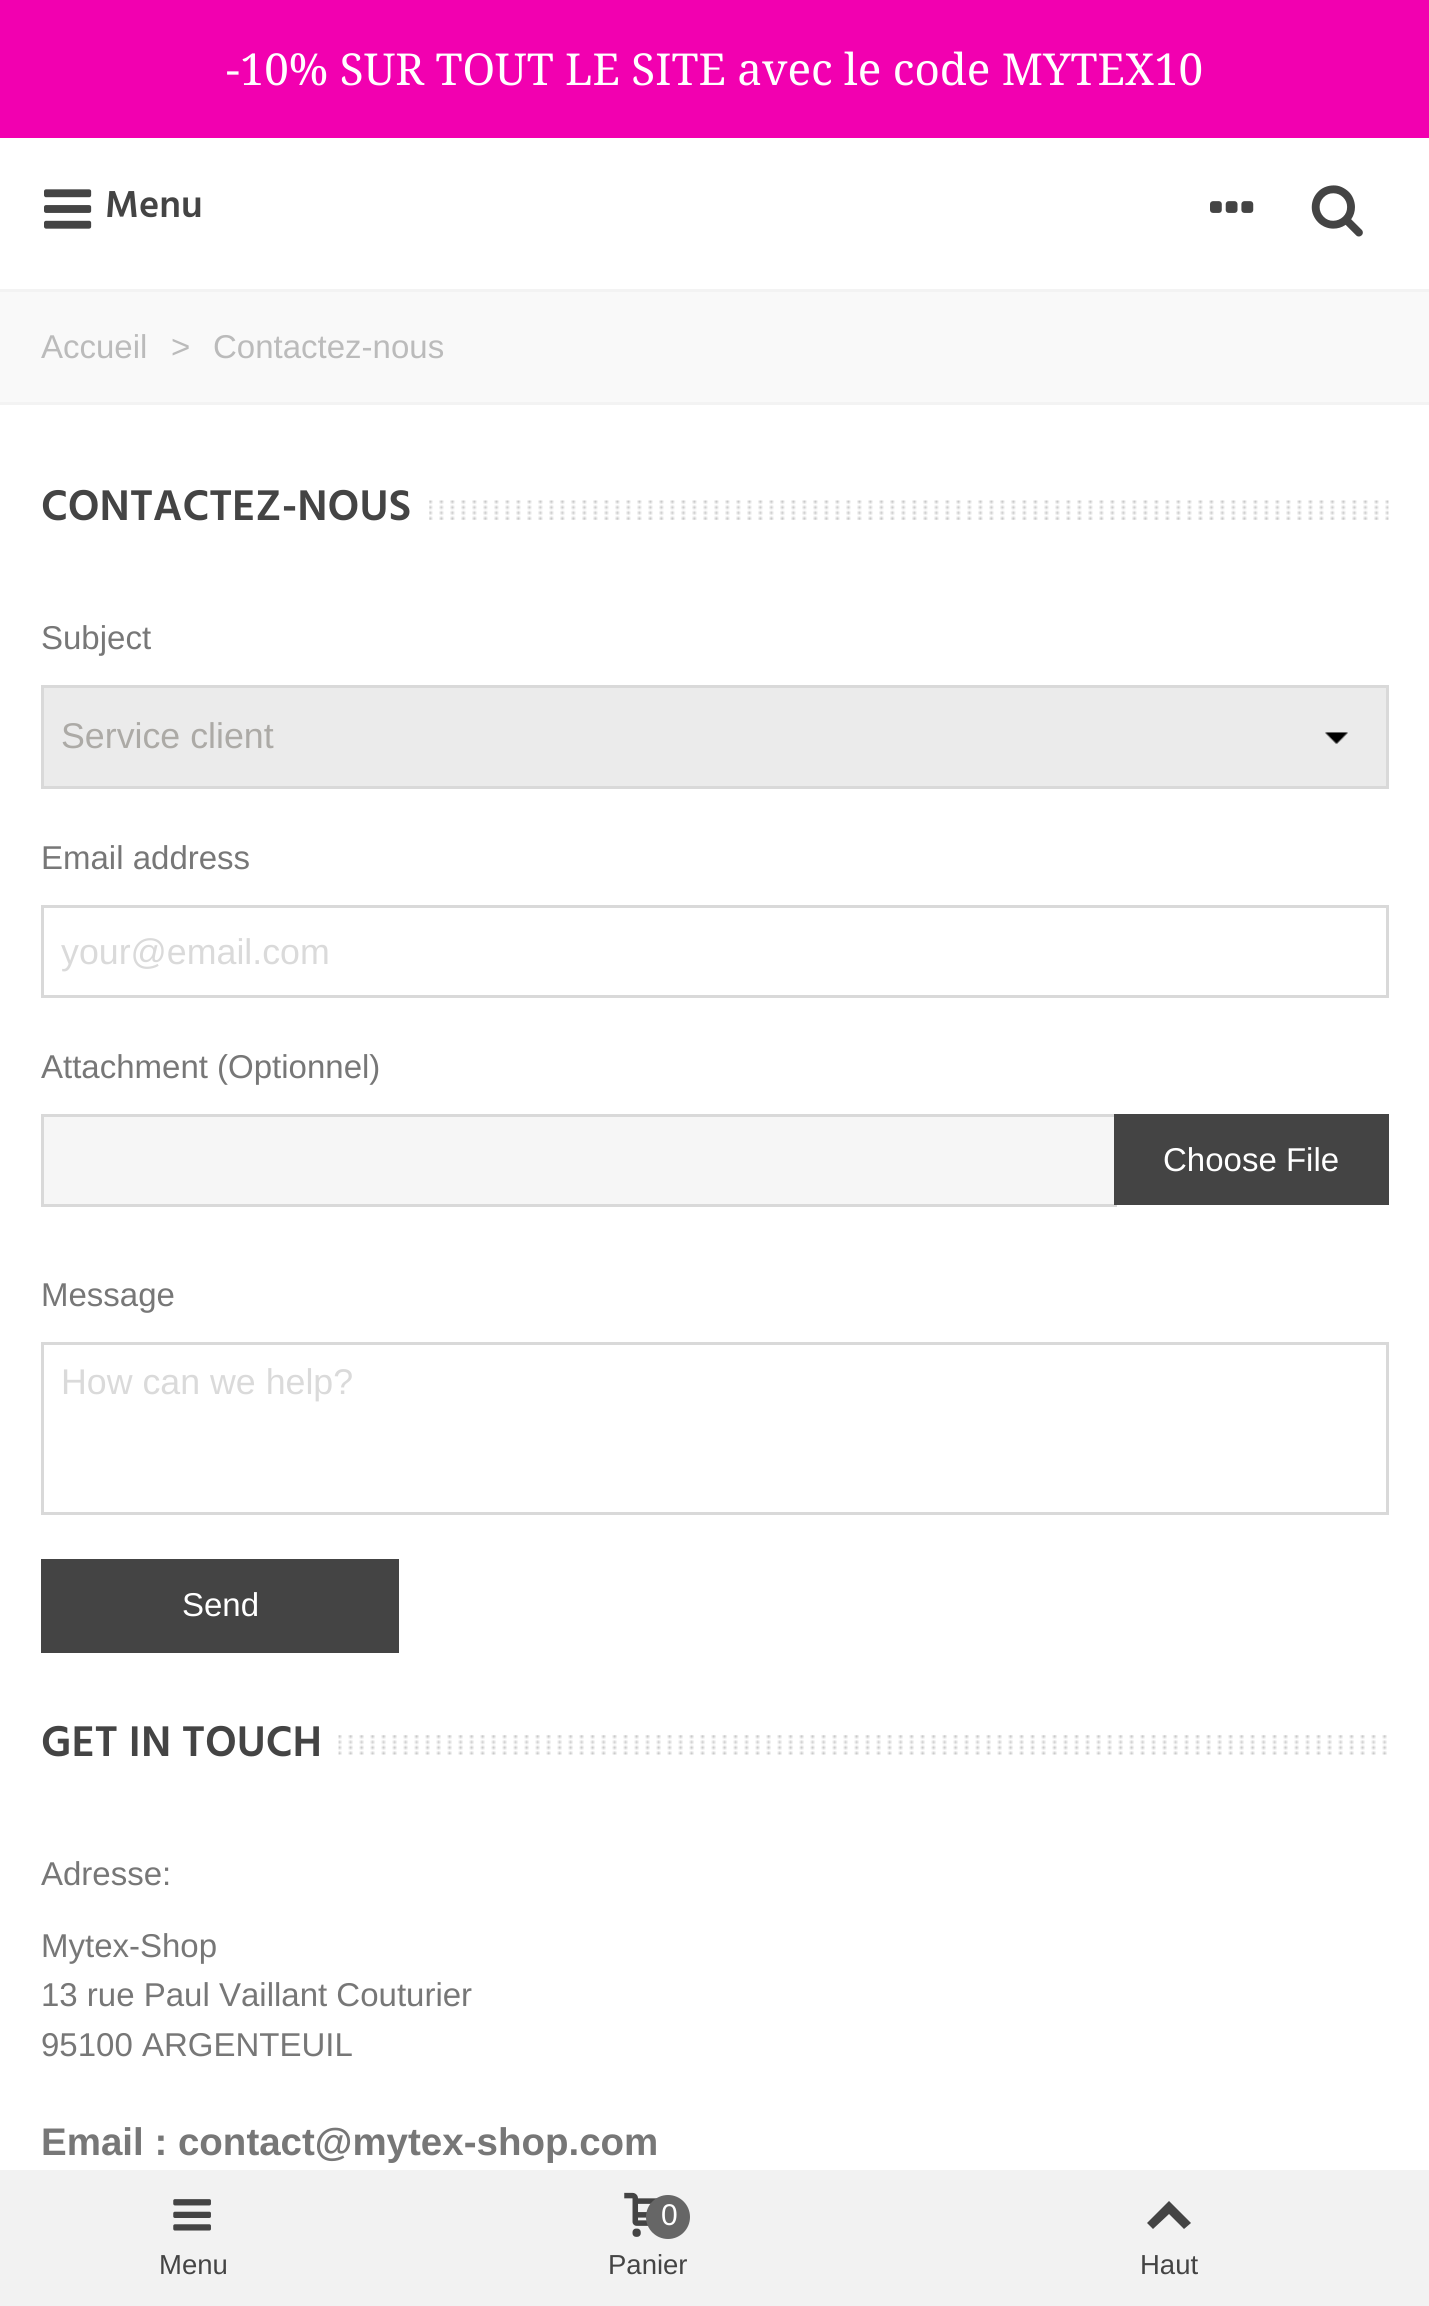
#include <cairo.h>
#include <math.h>
#include <stddef.h>


static void set_color(cairo_t *cr, unsigned color) {
    cairo_set_source_rgb(cr, (color >> 16) / 255.0, (color >> 8 & 255) / 255.0, (color & 255) / 255.0);
}

static void draw_text(cairo_t *cr, double x, double y, const char *s, const char *family, double size, int italic, int bold, unsigned color) {
    cairo_select_font_face(cr, family, italic ? CAIRO_FONT_SLANT_ITALIC : CAIRO_FONT_SLANT_NORMAL,
        bold ? CAIRO_FONT_WEIGHT_BOLD : CAIRO_FONT_WEIGHT_NORMAL);
    cairo_set_font_size(cr, size);
    set_color(cr, color);
    cairo_move_to(cr, x, y);
    cairo_show_text(cr, s);
}

static void fill_rect(cairo_t *cr, double x, double y, double w, double h, unsigned color) {
    set_color(cr, color);
    cairo_rectangle(cr, x, y, w, h);
    cairo_fill(cr);
}

static void draw_image(cairo_t *cr, const char *path, double x, double y, double w, double h) {
    cairo_surface_t *image = cairo_image_surface_create_from_png(path);
    cairo_save(cr);
    cairo_set_source_surface(cr, image, x, y);
    cairo_rectangle(cr, x, y, w, h);
    cairo_fill(cr);
    cairo_restore(cr);
    cairo_surface_destroy(image);
}

int main(void) {
    cairo_surface_t *surface = cairo_image_surface_create(CAIRO_FORMAT_RGB24, 1429, 2306);
    cairo_t *cr = cairo_create(surface);
    cairo_font_options_t *options = cairo_font_options_create();
    cairo_font_options_set_hint_metrics(options, CAIRO_HINT_METRICS_OFF);
    cairo_font_options_set_hint_style(options, CAIRO_HINT_STYLE_NONE);
    cairo_set_font_options(cr, options);
    cairo_set_miter_limit(cr, 4);
    set_color(cr, 0xFFFFFF);
    cairo_paint(cr);
    fill_rect(cr, 0, 0, 1429, 138, 0xF200B0);
    draw_text(cr, 226, 85, "-10% SUR TOUT LE SITE avec le code MYTEX10", "Noto Serif", 44, 0, 0, 0xFFFFFF);
    draw_image(cr, "assets/img1.png", 44, 189, 48, 40);
    draw_text(cr, 105, 217, "Menu", "Hind SemiBold", 38.5, 0, 0, 0x444444);
    draw_image(cr, "assets/img2.png", 1210, 201, 44, 12);
    draw_image(cr, "assets/img3.png", 1311, 185, 52, 52);
    fill_rect(cr, 0, 292, 1429, 110, 0xF9F9F9);
    fill_rect(cr, 0, 289, 1429, 3, 0xF3F3F3);
    fill_rect(cr, 0, 402, 1429, 3, 0xF3F3F3);
    draw_text(cr, 41, 358, "Accueil", "Liberation Sans", 33, 0, 0, 0xBBBBBB);
    draw_text(cr, 171, 358, ">", "Liberation Sans", 33, 0, 0, 0xBBBBBB);
    draw_text(cr, 213, 358, "Contactez-nous", "Liberation Sans", 33, 0, 0, 0xBBBBBB);
    draw_text(cr, 41, 520, "CONTACTEZ-NOUS", "Hind SemiBold", 44, 0, 0, 0x444444);
    draw_image(cr, "assets/img4.png", 429, 500, 960, 20);
    draw_text(cr, 41, 649, "Subject", "Liberation Sans", 33, 0, 0, 0x777777);
    fill_rect(cr, 44, 688, 1342, 98, 0xEBEBEB);
    draw_image(cr, "assets/img5.png", 1325, 732, 23, 12);
    cairo_rectangle(cr, 42.5, 686.5, 1345, 101);
    set_color(cr, 0xD9D9D9);
    cairo_set_line_width(cr, 3);
    cairo_stroke(cr);
    draw_text(cr, 61, 748, "Service client", "Liberation Sans", 35.75, 0, 0, 0xACAAA6);
    draw_text(cr, 41, 869, "Email address", "Liberation Sans", 33, 0, 0, 0x777777);
    cairo_rectangle(cr, 42.5, 906.5, 1345, 90);
    set_color(cr, 0xD9D9D9);
    cairo_stroke(cr);
    draw_text(cr, 61, 964, "your@email.com", "Liberation Sans", 35.75, 0, 0, 0xDADADA);
    draw_text(cr, 41, 1078, "Attachment (Optionnel)", "Liberation Sans", 33, 0, 0, 0x777777);
    set_color(cr, 0xF6F6F6);
    cairo_rectangle(cr, 42.5, 1115.5, 1073, 90);
    cairo_fill_preserve(cr);
    set_color(cr, 0xD9D9D9);
    cairo_stroke(cr);
    fill_rect(cr, 1114, 1114, 275, 91, 0x444444);
    draw_text(cr, 1163, 1171, "Choose File", "Liberation Sans", 33, 0, 0, 0xFFFFFF);
    draw_text(cr, 41, 1306, "Message", "Liberation Sans", 33, 0, 0, 0x777777);
    cairo_rectangle(cr, 42.5, 1343.5, 1345, 170);
    set_color(cr, 0xD9D9D9);
    cairo_stroke(cr);
    draw_text(cr, 61, 1394, "How can we help?", "Liberation Sans", 35.75, 0, 0, 0xDADADA);
    fill_rect(cr, 41, 1559, 358, 94, 0x444444);
    draw_text(cr, 182, 1616, "Send", "Liberation Sans", 33, 0, 0, 0xFFFFFF);
    draw_text(cr, 41, 1756, "GET IN TOUCH", "Hind SemiBold", 44, 0, 0, 0x444444);
    draw_image(cr, "assets/img6.png", 338, 1735, 1049, 20);
    draw_text(cr, 41, 1885, "Adresse:", "Liberation Sans", 33, 0, 0, 0x777777);
    draw_text(cr, 41, 1957, "Mytex-Shop", "Liberation Sans", 33, 0, 0, 0x777777);
    draw_text(cr, 41, 2006, "13 rue Paul Vaillant Couturier", "Liberation Sans", 33, 0, 0, 0x777777);
    draw_text(cr, 41, 2056, "95100 ARGENTEUIL", "Liberation Sans", 33, 0, 0, 0x777777);
    draw_text(cr, 41, 2155, "Email : contact@mytex-shop.com", "Liberation Sans", 38.5, 0, 1, 0x777777);
    fill_rect(cr, 0, 2170, 1429, 136, 0xF2F2F2);
    draw_image(cr, "assets/img7.png", 173, 2199, 38, 32);
    draw_text(cr, 159, 2274, "Menu", "Liberation Sans", 27.5, 0, 0, 0x444444);
    draw_image(cr, "assets/img8.png", 624, 2192, 35, 45);
    set_color(cr, 0x666666);
    cairo_arc(cr, 668, 2217, 22, 0, 2 * M_PI);
    cairo_fill(cr);
    draw_text(cr, 661, 2225, "0", "Liberation Sans", 30, 0, 0, 0xFFFFFF);
    draw_text(cr, 608, 2274, "Panier", "Liberation Sans", 27.5, 0, 0, 0x444444);
    cairo_new_path(cr);
    cairo_move_to(cr, 1147, 2223);
    cairo_line_to(cr, 1169, 2201);
    cairo_line_to(cr, 1191, 2223);
    cairo_line_to(cr, 1184, 2229);
    cairo_line_to(cr, 1169, 2214);
    cairo_line_to(cr, 1153, 2229);
    cairo_close_path(cr);
    cairo_fill(cr);
    draw_text(cr, 1140, 2274, "Haut", "Liberation Sans", 27.5, 0, 0, 0x444444);
    cairo_surface_write_to_png(surface, "output.png");
    cairo_font_options_destroy(options);
    cairo_destroy(cr);
    cairo_surface_destroy(surface);
    return 0;
}
